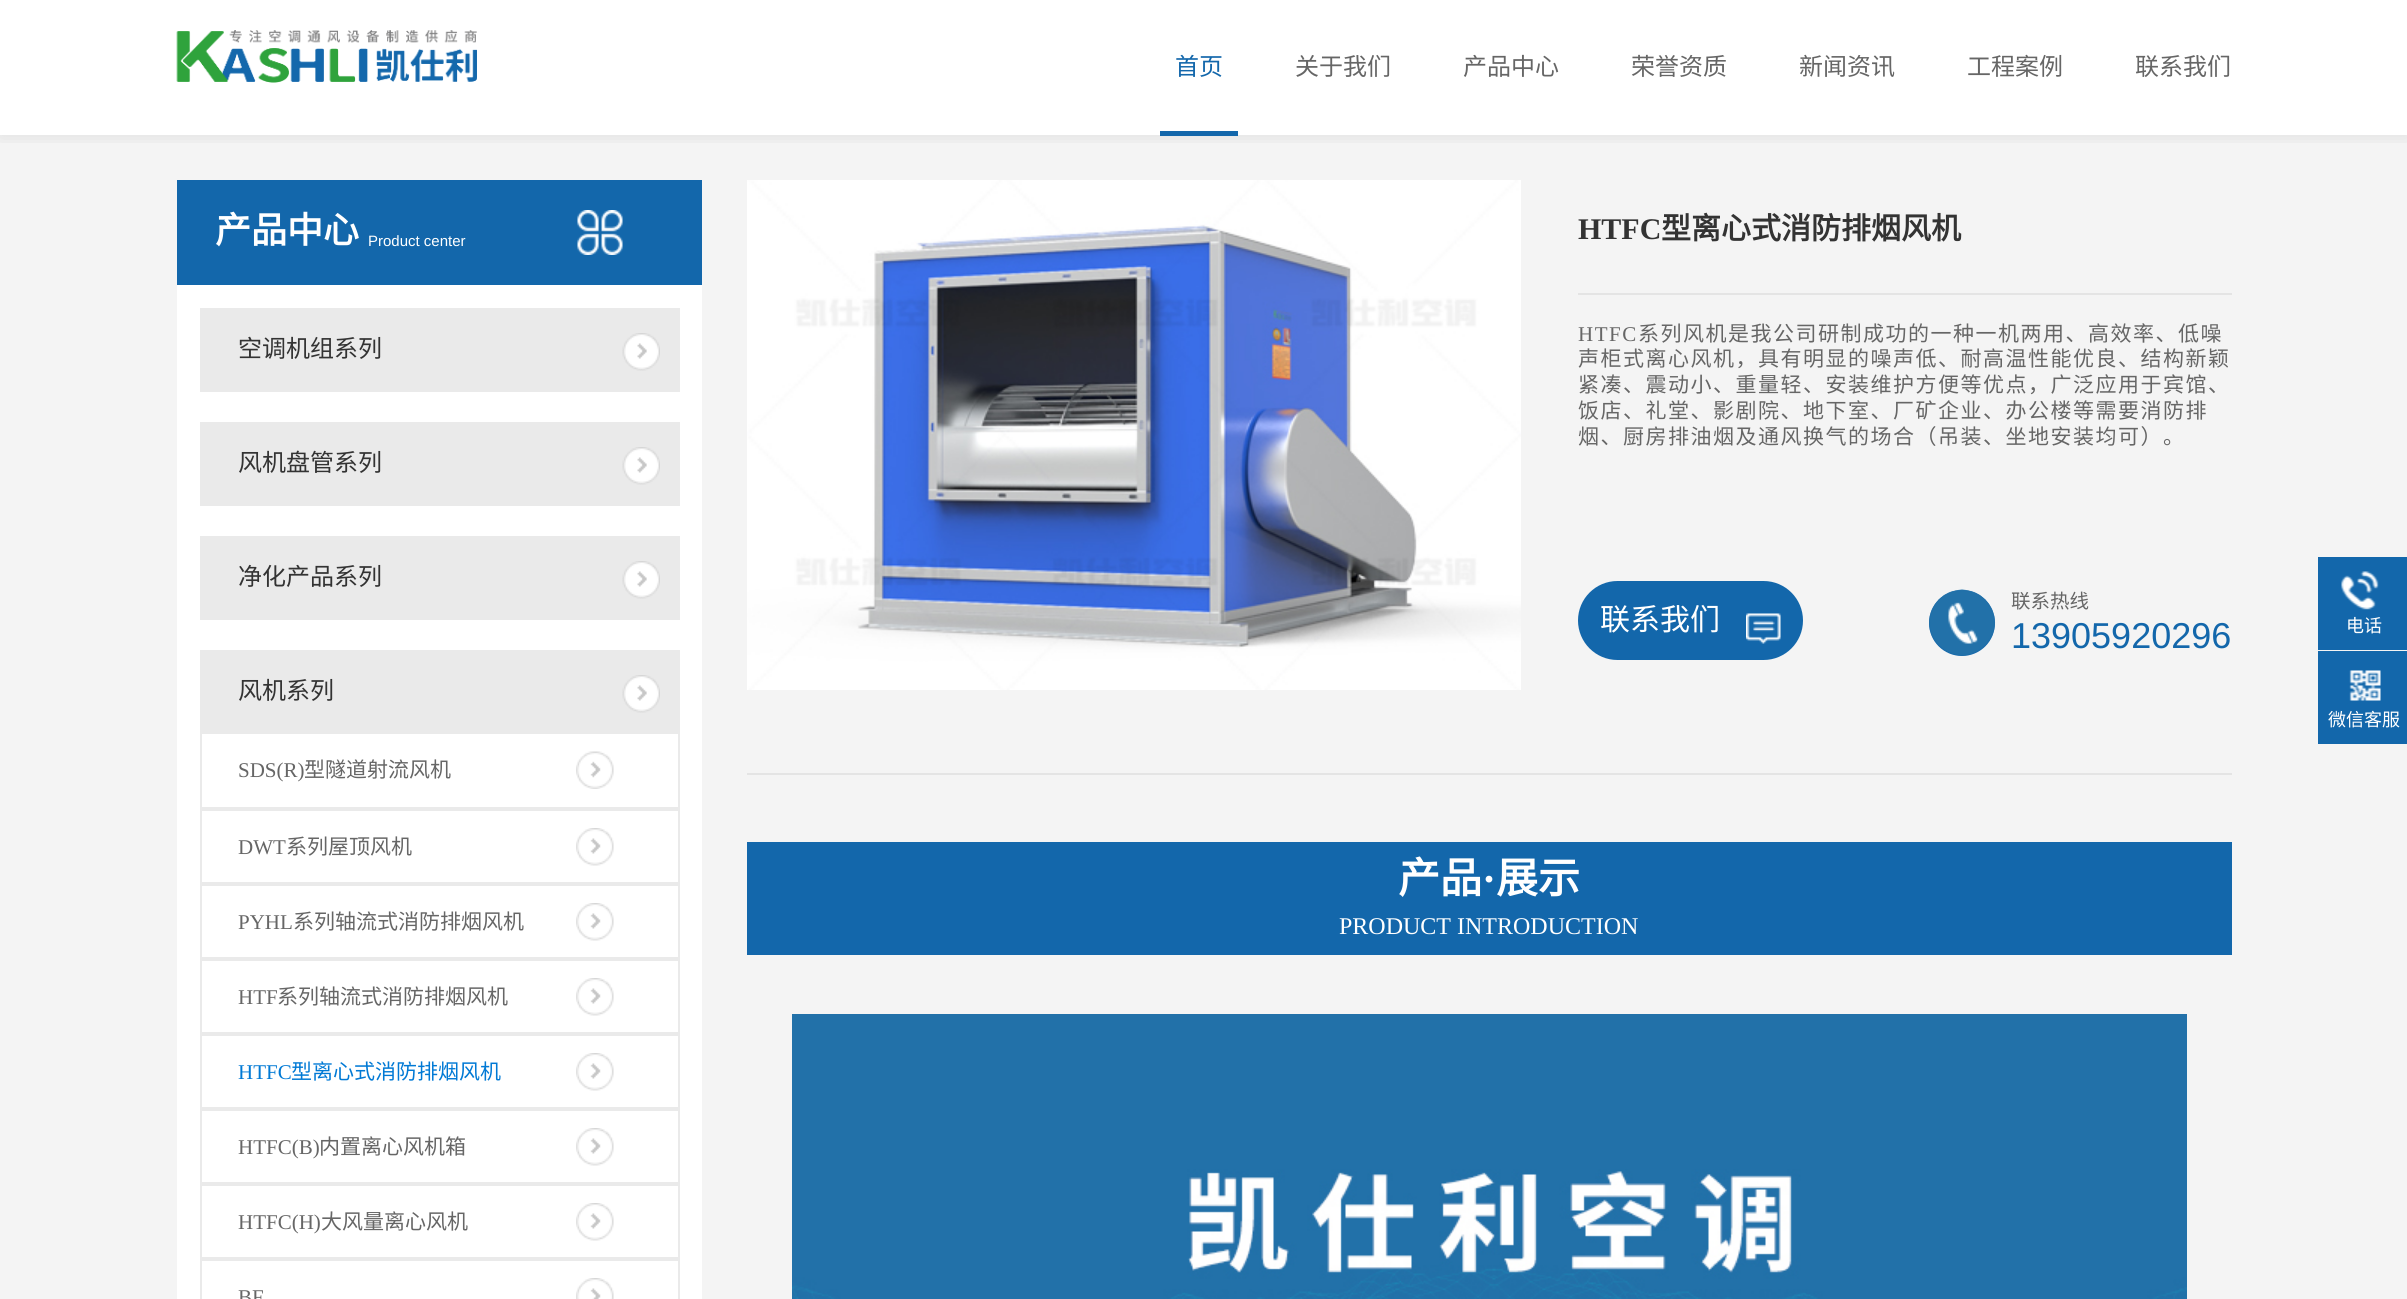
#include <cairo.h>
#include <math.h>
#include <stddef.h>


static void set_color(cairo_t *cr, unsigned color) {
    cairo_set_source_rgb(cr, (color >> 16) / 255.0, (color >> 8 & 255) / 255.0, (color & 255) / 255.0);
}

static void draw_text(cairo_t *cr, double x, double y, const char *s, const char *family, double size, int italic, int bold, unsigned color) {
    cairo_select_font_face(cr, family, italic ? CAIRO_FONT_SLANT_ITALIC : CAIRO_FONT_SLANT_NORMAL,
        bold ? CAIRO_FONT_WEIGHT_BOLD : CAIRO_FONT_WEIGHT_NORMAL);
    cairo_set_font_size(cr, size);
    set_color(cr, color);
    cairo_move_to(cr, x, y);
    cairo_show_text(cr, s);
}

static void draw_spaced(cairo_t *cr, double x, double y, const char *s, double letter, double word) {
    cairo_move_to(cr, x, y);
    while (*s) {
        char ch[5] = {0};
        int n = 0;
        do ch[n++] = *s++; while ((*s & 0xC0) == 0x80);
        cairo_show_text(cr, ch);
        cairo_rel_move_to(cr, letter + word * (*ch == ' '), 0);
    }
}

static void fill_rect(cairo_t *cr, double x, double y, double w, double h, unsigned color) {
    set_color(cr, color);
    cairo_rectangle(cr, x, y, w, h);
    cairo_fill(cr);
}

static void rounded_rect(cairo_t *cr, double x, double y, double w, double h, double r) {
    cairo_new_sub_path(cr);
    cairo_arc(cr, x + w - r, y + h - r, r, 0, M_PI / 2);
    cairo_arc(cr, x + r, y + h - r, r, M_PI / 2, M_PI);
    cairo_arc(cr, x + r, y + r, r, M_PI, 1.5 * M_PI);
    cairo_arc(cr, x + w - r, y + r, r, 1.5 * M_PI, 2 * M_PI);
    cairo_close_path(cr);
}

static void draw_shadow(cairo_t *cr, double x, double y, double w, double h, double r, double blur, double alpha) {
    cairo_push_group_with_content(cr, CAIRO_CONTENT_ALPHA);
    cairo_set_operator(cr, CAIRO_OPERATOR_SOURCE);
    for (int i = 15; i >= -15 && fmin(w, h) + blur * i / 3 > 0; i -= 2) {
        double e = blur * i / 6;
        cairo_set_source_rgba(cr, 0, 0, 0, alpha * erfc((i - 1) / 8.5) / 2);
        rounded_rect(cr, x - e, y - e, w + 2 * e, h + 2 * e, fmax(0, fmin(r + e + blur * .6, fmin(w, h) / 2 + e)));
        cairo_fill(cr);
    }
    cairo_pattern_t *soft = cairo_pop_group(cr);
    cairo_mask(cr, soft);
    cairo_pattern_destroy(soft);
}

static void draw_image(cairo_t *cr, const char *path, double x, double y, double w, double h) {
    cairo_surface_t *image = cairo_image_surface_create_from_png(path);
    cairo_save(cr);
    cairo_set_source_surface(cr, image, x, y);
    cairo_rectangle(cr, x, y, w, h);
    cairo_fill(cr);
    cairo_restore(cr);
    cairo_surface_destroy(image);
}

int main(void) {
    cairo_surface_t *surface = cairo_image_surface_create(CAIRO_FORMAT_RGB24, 2407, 1299);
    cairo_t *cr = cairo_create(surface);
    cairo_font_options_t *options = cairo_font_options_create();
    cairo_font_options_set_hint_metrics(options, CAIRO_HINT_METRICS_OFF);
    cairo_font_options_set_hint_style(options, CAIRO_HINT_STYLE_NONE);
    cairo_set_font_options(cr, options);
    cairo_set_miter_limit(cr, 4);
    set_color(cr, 0xFFFFFF);
    cairo_paint(cr);
    fill_rect(cr, 0, 135, 2407, 1164, 0xF4F4F4);
    cairo_save(cr);
    cairo_rectangle(cr, 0, 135, 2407, 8);
    cairo_clip(cr);
    set_color(cr, 0x000000);
    draw_shadow(cr, 0, 0, 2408, 135, 0, 10, 0.1);
    cairo_restore(cr);
    draw_image(cr, "assets/img1.png", 176, 30, 301, 53);
    draw_text(cr, 1175, 75, "首页", "Noto Sans CJK SC", 24, 0, 0, 0x1367AB);
    fill_rect(cr, 1160, 131, 78, 5, 0x1367AB);
    draw_text(cr, 1295, 75, "关于我们", "Noto Sans CJK SC", 24, 0, 0, 0x666666);
    draw_text(cr, 1463, 75, "产品中心", "Noto Sans CJK SC", 24, 0, 0, 0x666666);
    draw_text(cr, 1631, 75, "荣誉资质", "Noto Sans CJK SC", 24, 0, 0, 0x666666);
    draw_text(cr, 1799, 75, "新闻资讯", "Noto Sans CJK SC", 24, 0, 0, 0x666666);
    draw_text(cr, 1967, 75, "工程案例", "Noto Sans CJK SC", 24, 0, 0, 0x666666);
    draw_text(cr, 2135, 75, "联系我们", "Noto Sans CJK SC", 24, 0, 0, 0x666666);
    fill_rect(cr, 177, 180, 525, 105, 0x1367AB);
    draw_image(cr, "assets/img2.png", 577, 210, 46, 45);
    draw_text(cr, 215, 243, "产品中心", "Noto Sans CJK SC", 36, 0, 1, 0xFFFFFF);
    draw_text(cr, 368, 246, "Product center", "Liberation Sans", 15, 0, 0, 0xFFFFFF);
    fill_rect(cr, 177, 285, 525, 1014, 0xFFFFFF);
    fill_rect(cr, 200, 308, 480, 84, 0xEAEAEA);
    draw_text(cr, 238, 357, "空调机组系列", "Noto Sans CJK SC", 24, 0, 0, 0x333333);
    draw_image(cr, "assets/img3.png", 622, 333, 38, 38);
    fill_rect(cr, 200, 422, 480, 84, 0xEAEAEA);
    draw_text(cr, 238, 471, "风机盘管系列", "Noto Sans CJK SC", 24, 0, 0, 0x333333);
    draw_image(cr, "assets/img3.png", 622, 447, 38, 38);
    fill_rect(cr, 200, 536, 480, 84, 0xEAEAEA);
    draw_text(cr, 238, 585, "净化产品系列", "Noto Sans CJK SC", 24, 0, 0, 0x333333);
    draw_image(cr, "assets/img3.png", 622, 561, 38, 38);
    fill_rect(cr, 200, 650, 480, 84, 0xEAEAEA);
    draw_text(cr, 238, 699, "风机系列", "Noto Sans CJK SC", 24, 0, 0, 0x333333);
    draw_image(cr, "assets/img3.png", 622, 675, 38, 38);
    draw_image(cr, "assets/img4.png", 576, 751, 38, 38);
    fill_rect(cr, 678, 734, 2, 75, 0xEAEAEA);
    fill_rect(cr, 200, 807, 480, 2, 0xEAEAEA);
    fill_rect(cr, 200, 734, 2, 75, 0xEAEAEA);
    draw_text(cr, 238, 777, "SDS(R)", "Liberation Serif", 21, 0, 0, 0x666666);
    draw_text(cr, 304, 777, "型隧道射流风机", "Noto Sans CJK SC", 21, 0, 0, 0x666666);
    draw_image(cr, "assets/img5.png", 576, 828, 38, 38);
    cairo_rectangle(cr, 201, 810, 478, 73);
    set_color(cr, 0xEAEAEA);
    cairo_stroke(cr);
    draw_text(cr, 238, 854, "DWT", "Liberation Serif", 21, 0, 0, 0x666666);
    draw_text(cr, 286, 854, "系列屋顶风机", "Noto Sans CJK SC", 21, 0, 0, 0x666666);
    draw_image(cr, "assets/img5.png", 576, 903, 38, 38);
    cairo_rectangle(cr, 201, 885, 478, 73);
    set_color(cr, 0xEAEAEA);
    cairo_stroke(cr);
    draw_text(cr, 238, 929, "PYHL", "Liberation Serif", 21, 0, 0, 0x666666);
    draw_text(cr, 293, 929, "系列轴流式消防排烟风机", "Noto Sans CJK SC", 21, 0, 0, 0x666666);
    draw_image(cr, "assets/img5.png", 576, 978, 38, 38);
    cairo_rectangle(cr, 201, 960, 478, 73);
    set_color(cr, 0xEAEAEA);
    cairo_stroke(cr);
    draw_text(cr, 238, 1004, "HTF", "Liberation Serif", 21, 0, 0, 0x666666);
    draw_text(cr, 277, 1004, "系列轴流式消防排烟风机", "Noto Sans CJK SC", 21, 0, 0, 0x666666);
    draw_image(cr, "assets/img5.png", 576, 1053, 38, 38);
    cairo_rectangle(cr, 201, 1035, 478, 73);
    set_color(cr, 0xEAEAEA);
    cairo_stroke(cr);
    draw_text(cr, 238, 1079, "HTFC", "Liberation Serif", 21, 0, 0, 0x0079D5);
    draw_text(cr, 291, 1079, "型离心式消防排烟风机", "Noto Sans CJK SC", 21, 0, 0, 0x0079D5);
    draw_image(cr, "assets/img5.png", 576, 1128, 38, 38);
    cairo_rectangle(cr, 201, 1110, 478, 73);
    set_color(cr, 0xEAEAEA);
    cairo_stroke(cr);
    draw_text(cr, 238, 1154, "HTFC(B)", "Liberation Serif", 21, 0, 0, 0x666666);
    draw_text(cr, 319, 1154, "内置离心风机箱", "Noto Sans CJK SC", 21, 0, 0, 0x666666);
    draw_image(cr, "assets/img5.png", 576, 1203, 38, 38);
    cairo_rectangle(cr, 201, 1185, 478, 73);
    set_color(cr, 0xEAEAEA);
    cairo_stroke(cr);
    draw_text(cr, 238, 1229, "HTFC(H)", "Liberation Serif", 21, 0, 0, 0x666666);
    draw_text(cr, 321, 1229, "大风量离心风机", "Noto Sans CJK SC", 21, 0, 0, 0x666666);
    draw_image(cr, "assets/img6.png", 576, 1278, 38, 21);
    cairo_rectangle(cr, 201, 1260, 478, 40);
    set_color(cr, 0xEAEAEA);
    cairo_stroke(cr);
    draw_text(cr, 238, 1304, "BF", "Liberation Serif", 21, 0, 0, 0x666666);
    draw_image(cr, "assets/img7.png", 747, 180, 774, 510);
    draw_text(cr, 1578, 239, "HTFC", "Liberation Serif", 30, 0, 1, 0x333333);
    draw_text(cr, 1661, 239, "型离心式消防排烟风机", "Noto Sans CJK SC", 30, 0, 1, 0x333333);
    fill_rect(cr, 1578, 293, 654, 2, 0xE4E4E4);
    cairo_select_font_face(cr, "Liberation Serif", CAIRO_FONT_SLANT_NORMAL, CAIRO_FONT_WEIGHT_NORMAL);
    cairo_set_font_size(cr, 21);
    set_color(cr, 0x666666);
    draw_spaced(cr, 1578, 341, "HTFC", 1.5, 0);
    cairo_select_font_face(cr, "Noto Sans CJK SC", CAIRO_FONT_SLANT_NORMAL, CAIRO_FONT_WEIGHT_NORMAL);
    draw_spaced(cr, 1638, 341, "系列风机是我公司研制成功的一种一机两用、高效率、低噪", 1.5, 0);
    draw_spaced(cr, 1578, 366, "声柜式离心风机，具有明显的噪声低、耐高温性能优良、结构新颖", 1.5, 0);
    draw_spaced(cr, 1578, 392, "紧凑、震动小、重量轻、安装维护方便等优点，广泛应用于宾馆、", 1.5, 0);
    draw_spaced(cr, 1578, 418, "饭店、礼堂、影剧院、地下室、厂矿企业、办公楼等需要消防排", 1.5, 0);
    draw_spaced(cr, 1578, 444, "烟、厨房排油烟及通风换气的场合（吊装、坐地安装均可）。", 1.5, 0);
    set_color(cr, 0x1367AB);
    rounded_rect(cr, 1578, 581, 225, 79, 39.5);
    cairo_fill(cr);
    draw_text(cr, 1600, 630, "联系我们", "Noto Sans CJK SC", 30, 0, 0, 0xFFFFFF);
    draw_image(cr, "assets/img8.png", 1746, 613, 35, 31);
    set_color(cr, 0x1367AB);
    cairo_arc(cr, 1962, 623, 33, 0, 2 * M_PI);
    cairo_fill(cr);
    draw_image(cr, "assets/img9.png", 1929, 589, 67, 67);
    draw_text(cr, 2011, 608, "联系热线", "Noto Sans CJK SC", 19.5, 0, 0, 0x666666);
    draw_text(cr, 2011, 648, "13905920296", "Liberation Sans", 36, 0, 0, 0x1367AB);
    fill_rect(cr, 747, 773, 1485, 2, 0xE4E4E4);
    fill_rect(cr, 747, 842, 1485, 113, 0x1367AB);
    draw_text(cr, 1398, 893, "产品", "Noto Sans CJK SC", 42, 0, 1, 0xFFFFFF);
    draw_text(cr, 1482, 893, "·", "Liberation Serif", 42, 0, 1, 0xFFFFFF);
    draw_text(cr, 1496, 893, "展示", "Noto Sans CJK SC", 42, 0, 1, 0xFFFFFF);
    draw_text(cr, 1339, 934, "PRODUCT INTRODUCTION", "Liberation Serif", 24, 0, 0, 0xFFFFFF);
    draw_image(cr, "assets/img10.png", 792, 1014, 1395, 285);
    fill_rect(cr, 2318, 557, 89, 93, 0x1367AB);
    draw_image(cr, "assets/img11.png", 2341, 571, 38, 39);
    draw_text(cr, 2346, 632, "电话", "Noto Sans CJK SC", 18, 0, 0, 0xFFFFFF);
    fill_rect(cr, 2318, 651, 89, 93, 0x1367AB);
    draw_image(cr, "assets/img12.png", 2349, 670, 32, 31);
    draw_text(cr, 2328, 726, "微信客服", "Noto Sans CJK SC", 18, 0, 0, 0xFFFFFF);
    cairo_surface_write_to_png(surface, "output.png");
    cairo_font_options_destroy(options);
    cairo_destroy(cr);
    cairo_surface_destroy(surface);
    return 0;
}
